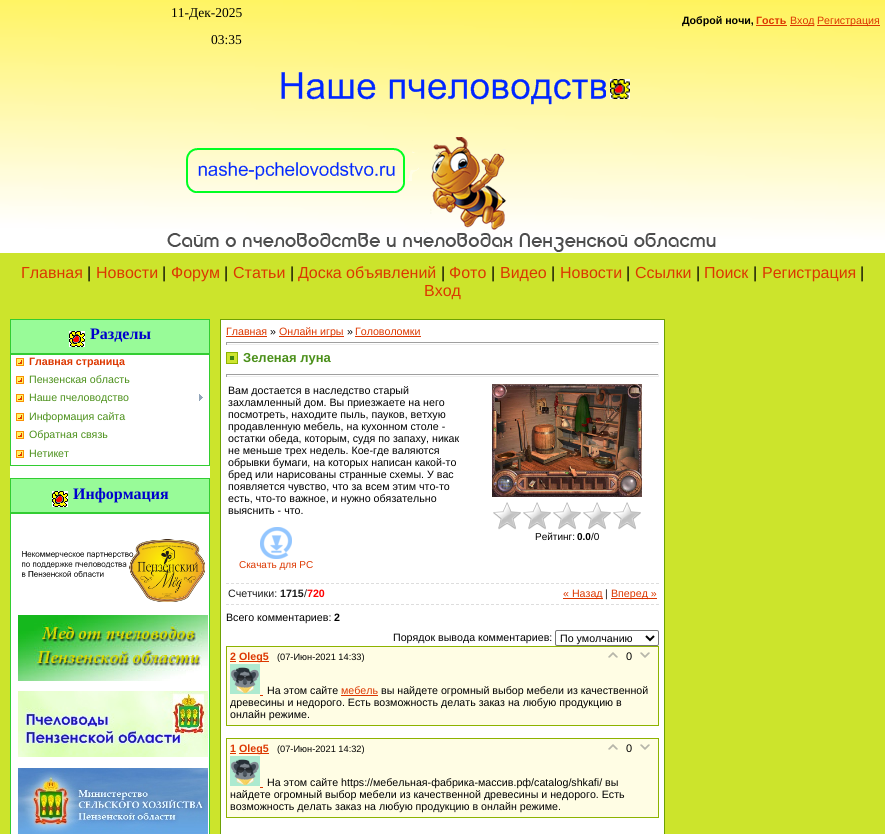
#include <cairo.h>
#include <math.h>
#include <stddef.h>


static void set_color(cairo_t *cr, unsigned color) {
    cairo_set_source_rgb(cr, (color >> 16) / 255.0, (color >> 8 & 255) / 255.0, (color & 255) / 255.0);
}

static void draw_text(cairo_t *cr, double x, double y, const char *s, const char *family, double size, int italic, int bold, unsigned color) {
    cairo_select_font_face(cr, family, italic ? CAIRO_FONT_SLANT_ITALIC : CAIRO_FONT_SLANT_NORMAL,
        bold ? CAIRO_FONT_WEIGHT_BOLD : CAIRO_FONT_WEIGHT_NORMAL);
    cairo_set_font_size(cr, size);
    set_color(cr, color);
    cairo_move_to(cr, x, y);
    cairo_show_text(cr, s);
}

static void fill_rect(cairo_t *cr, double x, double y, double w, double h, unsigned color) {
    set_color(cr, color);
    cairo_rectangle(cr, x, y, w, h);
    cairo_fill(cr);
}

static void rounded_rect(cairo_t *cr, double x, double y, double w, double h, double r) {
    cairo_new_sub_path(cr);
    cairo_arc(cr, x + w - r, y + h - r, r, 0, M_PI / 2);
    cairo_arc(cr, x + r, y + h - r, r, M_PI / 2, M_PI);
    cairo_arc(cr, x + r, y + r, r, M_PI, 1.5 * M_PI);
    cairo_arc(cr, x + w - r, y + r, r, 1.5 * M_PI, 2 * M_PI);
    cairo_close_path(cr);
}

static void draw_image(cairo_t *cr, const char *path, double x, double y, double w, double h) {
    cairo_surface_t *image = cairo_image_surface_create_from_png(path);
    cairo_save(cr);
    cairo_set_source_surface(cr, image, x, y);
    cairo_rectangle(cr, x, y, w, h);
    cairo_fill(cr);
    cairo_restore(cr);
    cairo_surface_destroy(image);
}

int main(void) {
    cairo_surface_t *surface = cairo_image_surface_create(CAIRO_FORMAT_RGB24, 885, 834);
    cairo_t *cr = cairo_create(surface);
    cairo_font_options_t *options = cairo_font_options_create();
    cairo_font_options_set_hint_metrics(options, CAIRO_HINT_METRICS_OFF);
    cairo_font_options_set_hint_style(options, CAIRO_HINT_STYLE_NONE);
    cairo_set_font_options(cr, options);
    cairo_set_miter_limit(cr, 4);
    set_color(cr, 0xCCE42C);
    cairo_paint(cr);
    draw_image(cr, "assets/img1.png", 0, 0, 885, 253);
    draw_text(cr, 171, 17, "11-Дек-2025", "Liberation Serif", 13.5, 0, 0, 0x000000);
    draw_text(cr, 211, 44, "03:35", "Liberation Serif", 13.5, 0, 0, 0x000000);
    draw_text(cr, 682, 24, "Доброй ночи,", "Liberation Sans", 10.65, 0, 1, 0x000000);
    draw_text(cr, 756, 24, "Гость", "Liberation Sans", 10.65, 0, 1, 0xDC3700);
    fill_rect(cr, 756, 25, 31, 1, 0xDC3700);
    fill_rect(cr, 790, 25, 24, 1, 0xDC3700);
    draw_text(cr, 790, 24, "Вход", "Liberation Sans", 10.65, 0, 0, 0xDC3700);
    fill_rect(cr, 817, 25, 63, 1, 0xDC3700);
    draw_text(cr, 817, 24, "Регистрация", "Liberation Sans", 10.65, 0, 0, 0xDC3700);
    draw_image(cr, "assets/img2.png", 167, 72, 549, 180);
    draw_text(cr, 21, 278, "Главная", "Liberation Sans", 16, 0, 0, 0xDC3700);
    draw_text(cr, 87, 278, "|", "Liberation Sans", 16, 0, 0, 0x000000);
    draw_text(cr, 96, 278, "Новости", "Liberation Sans", 16, 0, 0, 0xDC3700);
    draw_text(cr, 162, 278, "|", "Liberation Sans", 16, 0, 0, 0x000000);
    draw_text(cr, 171, 278, "Форум", "Liberation Sans", 16, 0, 0, 0xDC3700);
    draw_text(cr, 224, 278, "|", "Liberation Sans", 16, 0, 0, 0x000000);
    draw_text(cr, 233, 278, "Статьи", "Liberation Sans", 16, 0, 0, 0xDC3700);
    draw_text(cr, 290, 278, "|", "Liberation Sans", 16, 0, 0, 0x000000);
    draw_text(cr, 298, 278, "Доска объявлений", "Liberation Sans", 16, 0, 0, 0xDC3700);
    draw_text(cr, 441, 278, "|", "Liberation Sans", 16, 0, 0, 0x000000);
    draw_text(cr, 449, 278, "Фото", "Liberation Sans", 16, 0, 0, 0xDC3700);
    draw_text(cr, 491, 278, "|", "Liberation Sans", 16, 0, 0, 0x000000);
    draw_text(cr, 500, 278, "Видео", "Liberation Sans", 16, 0, 0, 0xDC3700);
    draw_text(cr, 551, 278, "|", "Liberation Sans", 16, 0, 0, 0x000000);
    draw_text(cr, 560, 278, "Новости", "Liberation Sans", 16, 0, 0, 0xDC3700);
    draw_text(cr, 626, 278, "|", "Liberation Sans", 16, 0, 0, 0x000000);
    draw_text(cr, 635, 278, "Ссылки", "Liberation Sans", 16, 0, 0, 0xDC3700);
    draw_text(cr, 696, 278, "|", "Liberation Sans", 16, 0, 0, 0x000000);
    draw_text(cr, 704, 278, "Поиск", "Liberation Sans", 16, 0, 0, 0xDC3700);
    draw_text(cr, 753, 278, "|", "Liberation Sans", 16, 0, 0, 0x000000);
    draw_text(cr, 762, 278, "Регистрация", "Liberation Sans", 16, 0, 0, 0xDC3700);
    draw_text(cr, 860, 278, "|", "Liberation Sans", 16, 0, 0, 0x000000);
    draw_text(cr, 424, 296, "Вход", "Liberation Sans", 16, 0, 0, 0xDC3700);
    fill_rect(cr, 10, 355, 200, 123, 0xFFFFFF);
    set_color(cr, 0x98FB98);
    cairo_rectangle(cr, 10.5, 319.5, 199, 34);
    cairo_fill_preserve(cr);
    set_color(cr, 0x32CD32);
    cairo_set_line_width(cr, 1);
    cairo_stroke(cr);
    draw_image(cr, "assets/img3.png", 69, 331, 16, 16);
    draw_text(cr, 90, 339, "Разделы", "Liberation Serif", 16, 0, 1, 0x0000CD);
    cairo_rectangle(cr, 10.5, 354.5, 199, 111);
    set_color(cr, 0x32CD32);
    cairo_stroke(cr);
    draw_image(cr, "assets/img4.png", 16, 358, 8, 8);
    draw_text(cr, 29, 365, "Главная страница", "Liberation Sans", 10.65, 0, 1, 0xDC3700);
    draw_image(cr, "assets/img4.png", 16, 376, 8, 8);
    draw_text(cr, 29, 383, "Пензенская область", "Liberation Sans", 10.65, 0, 0, 0x4B901A);
    draw_image(cr, "assets/img4.png", 16, 394, 8, 8);
    draw_text(cr, 29, 401, "Наше пчеловодство", "Liberation Sans", 10.65, 0, 0, 0x4B901A);
    draw_image(cr, "assets/img5.png", 199, 394, 4, 7);
    draw_image(cr, "assets/img4.png", 16, 413, 8, 8);
    draw_text(cr, 29, 420, "Информация сайта", "Liberation Sans", 10.65, 0, 0, 0x4B901A);
    draw_image(cr, "assets/img4.png", 16, 431, 8, 8);
    draw_text(cr, 29, 438, "Обратная связь", "Liberation Sans", 10.65, 0, 0, 0x4B901A);
    draw_image(cr, "assets/img4.png", 16, 450, 8, 8);
    draw_text(cr, 29, 457, "Нетикет", "Liberation Sans", 10.65, 0, 0, 0x4B901A);
    set_color(cr, 0x98FB98);
    cairo_rectangle(cr, 10.5, 478.5, 199, 34);
    cairo_fill_preserve(cr);
    set_color(cr, 0x32CD32);
    cairo_stroke(cr);
    draw_image(cr, "assets/img3.png", 52, 491, 16, 16);
    draw_text(cr, 73, 499, "Информация", "Liberation Serif", 16, 0, 1, 0x0000CD);
    set_color(cr, 0xFFFFFF);
    cairo_rectangle(cr, 10.5, 513.5, 199, 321);
    cairo_fill_preserve(cr);
    set_color(cr, 0x32CD32);
    cairo_stroke(cr);
    draw_image(cr, "assets/img6.png", 22, 539, 183, 63);
    draw_image(cr, "assets/img7.png", 18, 615, 190, 66);
    draw_image(cr, "assets/img8.png", 18, 691, 190, 66);
    draw_image(cr, "assets/img9.png", 18, 768, 190, 66);
    cairo_rectangle(cr, 220.5, 319.5, 444, 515);
    set_color(cr, 0x6DA104);
    cairo_stroke(cr);
    fill_rect(cr, 221, 320, 443, 514, 0xFFFFFF);
    draw_text(cr, 226, 335, "Главная", "Liberation Sans", 10.65, 0, 0, 0xDC3700);
    fill_rect(cr, 226, 336, 41, 1, 0xDC3700);
    draw_text(cr, 270, 335, "»", "Liberation Sans", 10.65, 0, 0, 0x000000);
    fill_rect(cr, 279, 336, 65, 1, 0xDC3700);
    draw_text(cr, 279, 335, "Онлайн игры", "Liberation Sans", 10.65, 0, 0, 0xDC3700);
    draw_text(cr, 347, 335, "»", "Liberation Sans", 10.65, 0, 0, 0x000000);
    draw_text(cr, 355, 335, "Головоломки", "Liberation Sans", 10.65, 0, 0, 0xDC3700);
    fill_rect(cr, 355, 336, 66, 1, 0xDC3700);
    fill_rect(cr, 226, 342, 433, 1, 0x9F9F9F);
    fill_rect(cr, 658, 342, 1, 3, 0xEEEEEE);
    fill_rect(cr, 226, 344, 433, 1, 0xEEEEEE);
    fill_rect(cr, 226, 342, 1, 3, 0x9F9F9F);
    draw_image(cr, "assets/img10.png", 226, 352, 12, 12);
    draw_text(cr, 243, 362, "Зеленая луна", "Liberation Sans", 13, 0, 1, 0x4B901A);
    fill_rect(cr, 226, 374, 433, 1, 0x9F9F9F);
    fill_rect(cr, 658, 374, 1, 3, 0xEEEEEE);
    fill_rect(cr, 226, 376, 433, 1, 0xEEEEEE);
    fill_rect(cr, 226, 374, 1, 3, 0x9F9F9F);
    draw_text(cr, 228, 394, "Вам достается в наследство старый", "Liberation Sans", 10.65, 0, 0, 0x000000);
    draw_text(cr, 228, 406, "захламленный дом. Вы приезжаете на него", "Liberation Sans", 10.65, 0, 0, 0x000000);
    draw_text(cr, 228, 418, "посмотреть, находите пыль, пауков, ветхую", "Liberation Sans", 10.65, 0, 0, 0x000000);
    draw_text(cr, 228, 430, "продавленную мебель, на кухонном столе -", "Liberation Sans", 10.65, 0, 0, 0x000000);
    draw_text(cr, 228, 442, "остатки обеда, которым, судя по запаху, никак", "Liberation Sans", 10.65, 0, 0, 0x000000);
    draw_text(cr, 228, 454, "не меньше трех недель. Кое-где валяются", "Liberation Sans", 10.65, 0, 0, 0x000000);
    draw_text(cr, 228, 466, "обрывки бумаги, на которых написан какой-то", "Liberation Sans", 10.65, 0, 0, 0x000000);
    draw_text(cr, 228, 478, "бред или нарисованы странные схемы. У вас", "Liberation Sans", 10.65, 0, 0, 0x000000);
    draw_text(cr, 228, 490, "появляется чувство, что за всем этим что-то", "Liberation Sans", 10.65, 0, 0, 0x000000);
    draw_text(cr, 228, 502, "есть, что-то важное, и нужно обязательно", "Liberation Sans", 10.65, 0, 0, 0x000000);
    draw_text(cr, 228, 514, "выяснить - что.", "Liberation Sans", 10.65, 0, 0, 0x000000);
    draw_image(cr, "assets/img11.png", 260, 527, 32, 32);
    draw_text(cr, 239, 568, "Скачать для PC", "Liberation Sans", 10, 0, 0, 0xDC3700);
    draw_image(cr, "assets/img12.png", 492, 384, 150, 113);
    draw_image(cr, "assets/img13.png", 493, 502, 148, 28);
    draw_text(cr, 535, 540, "Рейтинг:", "Liberation Sans", 10, 0, 0, 0x000000);
    draw_text(cr, 577, 540, "0.0", "Liberation Sans", 10, 0, 1, 0x000000);
    draw_text(cr, 591, 540, "/0", "Liberation Sans", 10, 0, 0, 0x000000);
    cairo_new_path(cr);
    cairo_move_to(cr, 226, 583.5);
    cairo_line_to(cr, 659, 583.5);
    set_color(cr, 0xDDDDDD);
    cairo_set_dash(cr, (double[]){3, 2}, 2, 0);
    cairo_stroke(cr);
    cairo_new_path(cr);
    cairo_move_to(cr, 226, 604.5);
    cairo_line_to(cr, 659, 604.5);
    cairo_stroke(cr);
    draw_text(cr, 228, 597, "Счетчики:", "Liberation Sans", 10.65, 0, 0, 0x1A1A1A);
    draw_text(cr, 280, 597, "1715", "Liberation Sans", 10.65, 0, 1, 0x1A1A1A);
    draw_text(cr, 304, 597, "/", "Liberation Sans", 10.65, 0, 0, 0x1A1A1A);
    draw_text(cr, 307, 597, "720", "Liberation Sans", 10.65, 0, 1, 0xFF0000);
    fill_rect(cr, 563, 598, 40, 1, 0xDC3700);
    draw_text(cr, 563, 597, "« Назад", "Liberation Sans", 10.65, 0, 0, 0xDC3700);
    draw_text(cr, 605, 597, "|", "Liberation Sans", 10.65, 0, 0, 0x1A1A1A);
    fill_rect(cr, 611, 598, 46, 1, 0xDC3700);
    draw_text(cr, 611, 597, "Вперед »", "Liberation Sans", 10.65, 0, 0, 0xDC3700);
    draw_text(cr, 226, 621, "Всего комментариев:", "Liberation Sans", 10.65, 0, 0, 0x000000);
    draw_text(cr, 334, 621, "2", "Liberation Sans", 10.65, 0, 1, 0x000000);
    draw_text(cr, 393, 641, "Порядок вывода комментариев:", "Liberation Sans", 10.65, 0, 0, 0x000000);
    rounded_rect(cr, 555.5, 630.5, 103, 15, 1.5);
    set_color(cr, 0x767676);
    cairo_set_dash(cr, NULL, 0, 0);
    cairo_stroke(cr);
    cairo_new_path(cr);
    cairo_move_to(cr, 646, 636);
    cairo_line_to(cr, 650, 640);
    cairo_line_to(cr, 654, 636);
    set_color(cr, 0x000000);
    cairo_set_line_width(cr, 2);
    cairo_stroke(cr);
    draw_text(cr, 560, 642, "По умолчанию", "Liberation Sans", 10.65, 0, 0, 0x000000);
    set_color(cr, 0xFFFDE4);
    cairo_rectangle(cr, 226.5, 646.5, 432, 79);
    cairo_fill_preserve(cr);
    set_color(cr, 0x8DB300);
    cairo_set_line_width(cr, 1);
    cairo_stroke(cr);
    draw_text(cr, 230, 660, "2", "Liberation Sans", 10.65, 0, 1, 0xDC3700);
    fill_rect(cr, 230, 661, 6, 1, 0xDC3700);
    fill_rect(cr, 239, 661, 30, 1, 0xDC3700);
    draw_text(cr, 239, 660, "Oleg5", "Liberation Sans", 10.65, 0, 1, 0xDC3700);
    draw_text(cr, 277, 660, "(07-Июн-2021 14:33)", "Liberation Sans", 9.25, 0, 0, 0x000000);
    draw_image(cr, "assets/img14.png", 608, 652, 10, 6);
    draw_text(cr, 626, 660, "0", "Liberation Sans", 11, 0, 0, 0x000000);
    draw_image(cr, "assets/img15.png", 640, 652, 10, 6);
    draw_image(cr, "assets/img16.png", 230, 664, 30, 30);
    fill_rect(cr, 260, 695, 3, 1, 0xDC3700);
    draw_text(cr, 267, 694, "На этом сайте", "Liberation Sans", 10.65, 0, 0, 0x000000);
    draw_text(cr, 341, 694, "мебель", "Liberation Sans", 10.65, 0, 0, 0xDC3700);
    fill_rect(cr, 341, 695, 37, 1, 0xDC3700);
    draw_text(cr, 381, 694, "вы найдете огромный выбор мебели из качественной", "Liberation Sans", 10.65, 0, 0, 0x000000);
    draw_text(cr, 230, 706, "древесины и недорого. Есть возможность делать заказ на любую продукцию в", "Liberation Sans", 10.65, 0, 0, 0x000000);
    draw_text(cr, 230, 718, "онлайн режиме.", "Liberation Sans", 10.65, 0, 0, 0x000000);
    set_color(cr, 0xFFFDE4);
    cairo_rectangle(cr, 226.5, 738.5, 432, 79);
    cairo_fill_preserve(cr);
    set_color(cr, 0x8DB300);
    cairo_stroke(cr);
    draw_text(cr, 230, 752, "1", "Liberation Sans", 10.65, 0, 1, 0xDC3700);
    fill_rect(cr, 230, 753, 6, 1, 0xDC3700);
    fill_rect(cr, 239, 753, 30, 1, 0xDC3700);
    draw_text(cr, 239, 752, "Oleg5", "Liberation Sans", 10.65, 0, 1, 0xDC3700);
    draw_text(cr, 277, 752, "(07-Июн-2021 14:32)", "Liberation Sans", 9.25, 0, 0, 0x000000);
    draw_image(cr, "assets/img14.png", 608, 744, 10, 6);
    draw_text(cr, 626, 752, "0", "Liberation Sans", 11, 0, 0, 0x000000);
    draw_image(cr, "assets/img15.png", 640, 744, 10, 6);
    draw_image(cr, "assets/img16.png", 230, 756, 30, 30);
    fill_rect(cr, 260, 787, 3, 1, 0xDC3700);
    draw_text(cr, 267, 786, "На этом сайте https://мебельная-фабрика-массив.рф/catalog/shkafi/ вы", "Liberation Sans", 10.65, 0, 0, 0x000000);
    draw_text(cr, 230, 798, "найдете огромный выбор мебели из качественной древесины и недорого. Есть", "Liberation Sans", 10.65, 0, 0, 0x000000);
    draw_text(cr, 230, 810, "возможность делать заказ на любую продукцию в онлайн режиме.", "Liberation Sans", 10.65, 0, 0, 0x000000);
    cairo_surface_write_to_png(surface, "output.png");
    cairo_font_options_destroy(options);
    cairo_destroy(cr);
    cairo_surface_destroy(surface);
    return 0;
}
